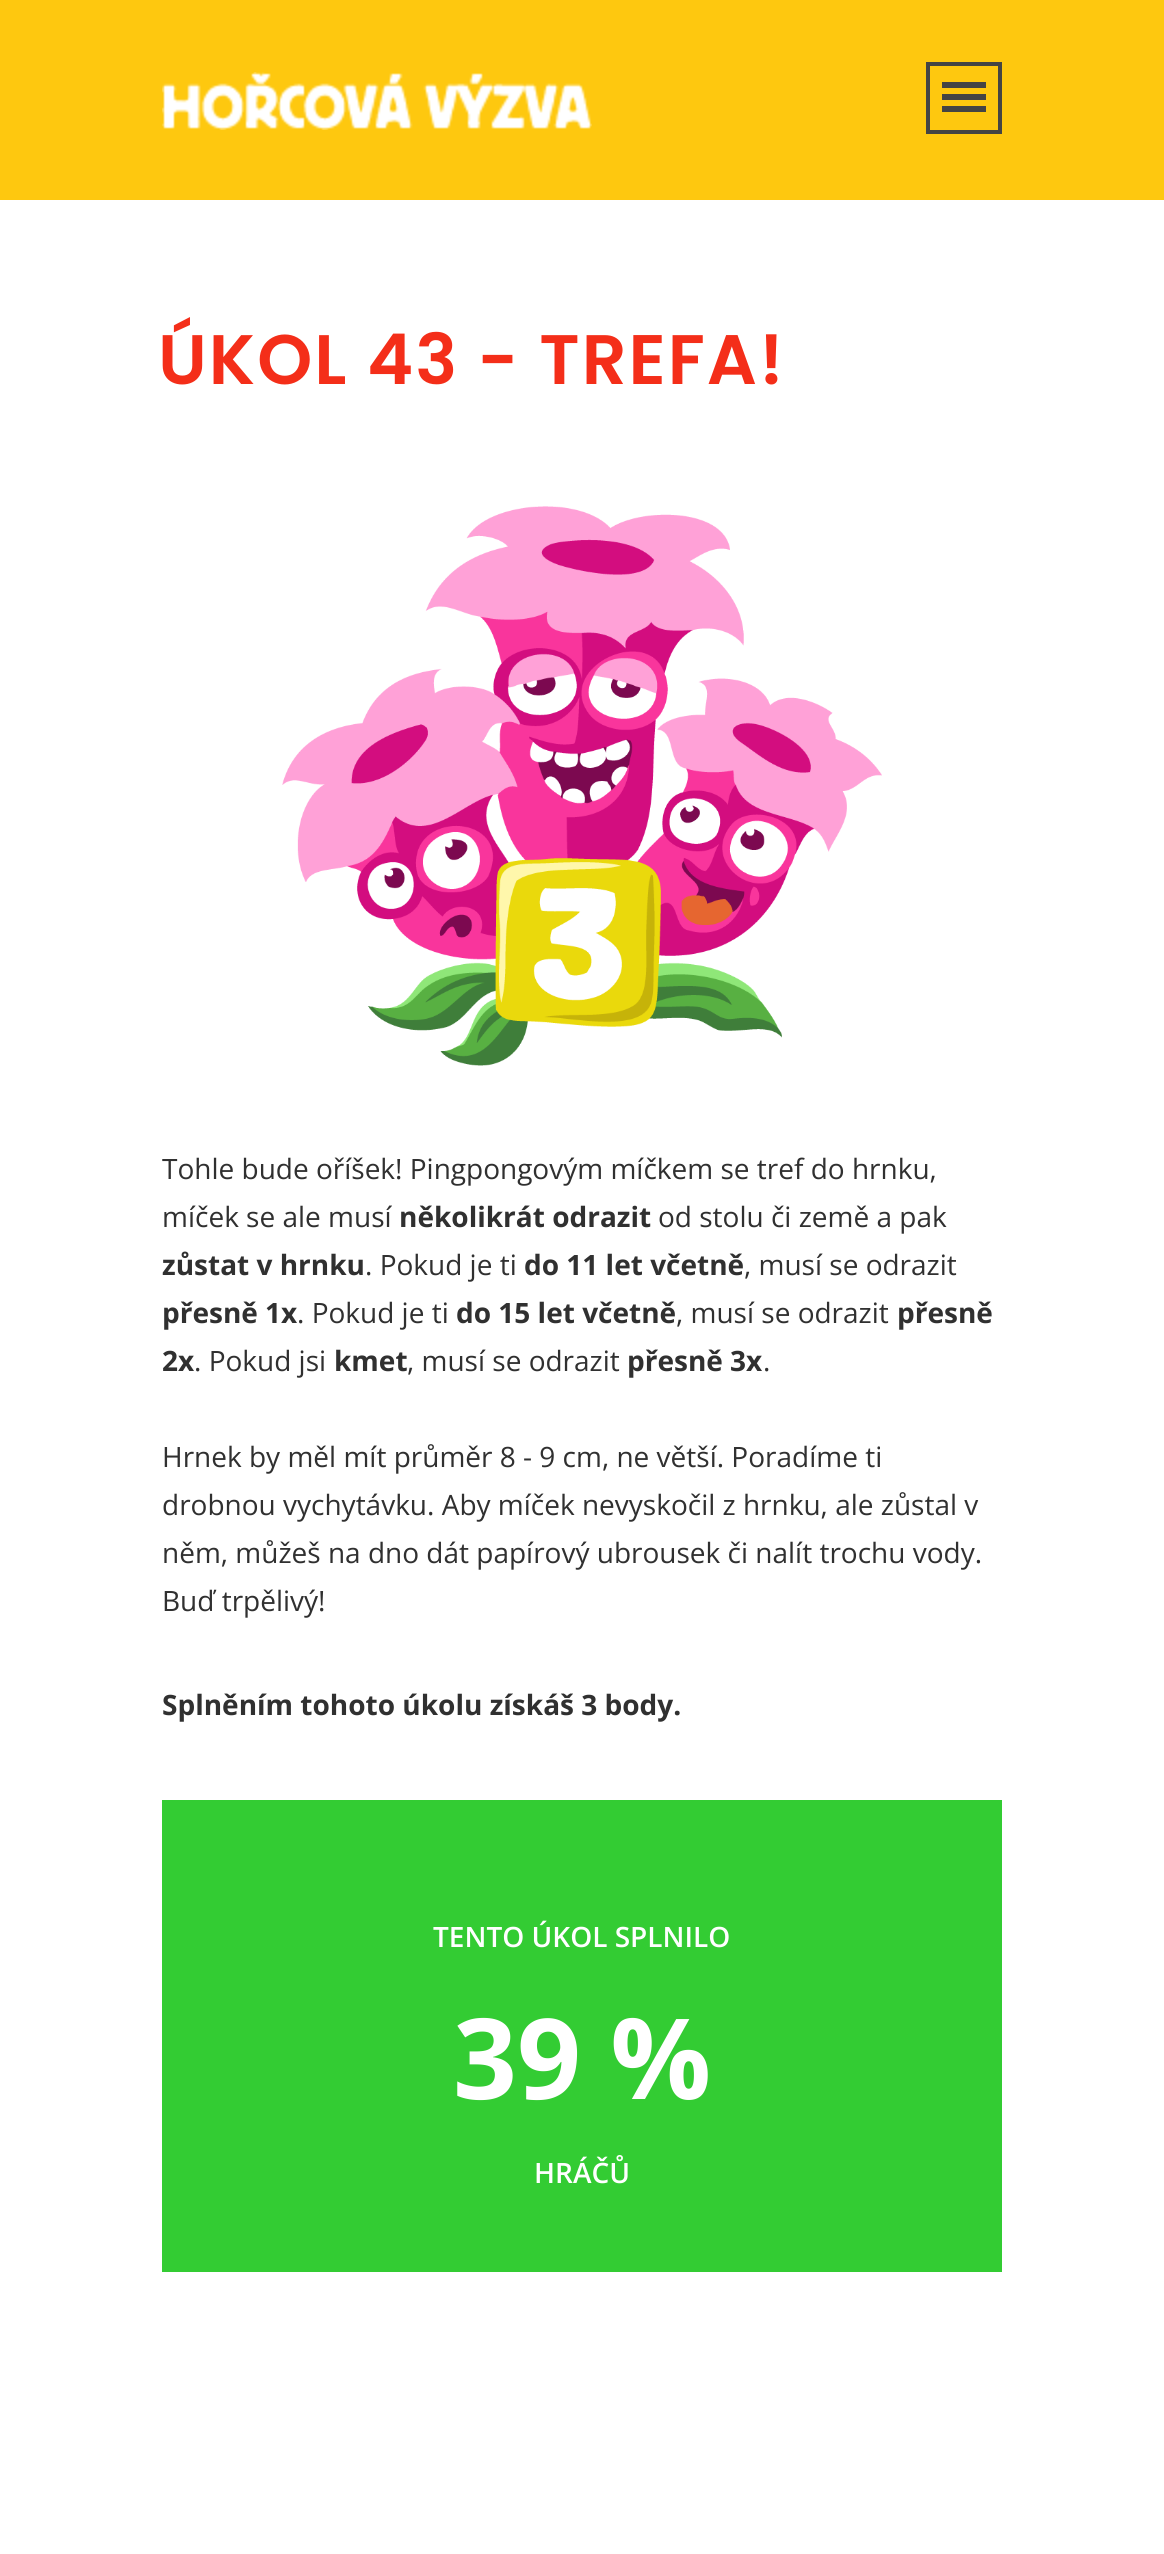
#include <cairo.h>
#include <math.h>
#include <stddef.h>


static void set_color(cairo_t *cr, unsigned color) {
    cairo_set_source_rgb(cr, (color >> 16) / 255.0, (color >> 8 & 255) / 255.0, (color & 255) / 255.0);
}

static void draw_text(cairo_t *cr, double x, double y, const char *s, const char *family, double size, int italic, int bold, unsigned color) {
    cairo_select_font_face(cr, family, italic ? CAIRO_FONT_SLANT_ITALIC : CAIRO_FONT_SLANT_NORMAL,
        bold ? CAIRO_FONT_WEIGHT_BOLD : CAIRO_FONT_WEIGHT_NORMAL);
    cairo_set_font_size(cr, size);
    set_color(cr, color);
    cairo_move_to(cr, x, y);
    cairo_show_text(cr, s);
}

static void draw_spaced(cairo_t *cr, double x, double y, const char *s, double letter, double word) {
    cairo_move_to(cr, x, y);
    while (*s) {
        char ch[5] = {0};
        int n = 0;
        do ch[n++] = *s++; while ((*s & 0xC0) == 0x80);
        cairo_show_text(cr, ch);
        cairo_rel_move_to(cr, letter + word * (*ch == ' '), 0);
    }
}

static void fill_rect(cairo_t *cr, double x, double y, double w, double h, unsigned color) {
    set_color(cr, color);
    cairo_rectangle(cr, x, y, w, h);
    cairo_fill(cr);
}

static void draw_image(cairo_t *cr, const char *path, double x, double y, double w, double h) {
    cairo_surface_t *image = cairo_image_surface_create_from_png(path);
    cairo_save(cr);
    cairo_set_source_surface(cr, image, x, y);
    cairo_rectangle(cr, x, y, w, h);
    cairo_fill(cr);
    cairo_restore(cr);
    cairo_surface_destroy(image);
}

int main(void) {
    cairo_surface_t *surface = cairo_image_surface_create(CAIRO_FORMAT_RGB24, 1164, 2554);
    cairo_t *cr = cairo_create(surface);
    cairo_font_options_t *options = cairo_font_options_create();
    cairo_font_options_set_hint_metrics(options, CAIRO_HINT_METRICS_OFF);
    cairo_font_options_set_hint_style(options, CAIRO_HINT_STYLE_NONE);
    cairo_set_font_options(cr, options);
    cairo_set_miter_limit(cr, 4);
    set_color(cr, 0xFFFFFF);
    cairo_paint(cr);
    fill_rect(cr, 0, 0, 1164, 200, 0xFEC80F);
    draw_image(cr, "assets/img1.png", 162, 72, 430, 58);
    cairo_rectangle(cr, 928, 64, 72, 68);
    set_color(cr, 0x444444);
    cairo_set_line_width(cr, 4);
    cairo_stroke(cr);
    fill_rect(cr, 942, 82, 44, 6, 0x444444);
    fill_rect(cr, 942, 94, 44, 6, 0x444444);
    fill_rect(cr, 942, 106, 44, 6, 0x444444);
    cairo_select_font_face(cr, "Poppins SemiBold", CAIRO_FONT_SLANT_NORMAL, CAIRO_FONT_WEIGHT_NORMAL);
    cairo_set_font_size(cr, 70);
    set_color(cr, 0xF42E19);
    draw_spaced(cr, 158, 384, "ÚKOL 43 - TREFA!", 2, 0);
    draw_image(cr, "assets/img2.png", 282, 506, 600, 560);
    draw_text(cr, 162, 1179, "Tohle bude oříšek! Pingpongovým míčkem se tref do hrnku,", "Open Sans", 28, 0, 0, 0x303030);
    draw_text(cr, 162, 1227, "míček se ale musí", "Open Sans", 28, 0, 0, 0x303030);
    draw_text(cr, 399, 1227, "několikrát odrazit", "Open Sans", 28, 0, 1, 0x303030);
    draw_text(cr, 658, 1227, "od stolu či země a pak", "Open Sans", 28, 0, 0, 0x303030);
    draw_text(cr, 162, 1275, "zůstat v hrnku", "Open Sans", 28, 0, 1, 0x303030);
    draw_text(cr, 365, 1275, ". Pokud je ti", "Open Sans", 28, 0, 0, 0x303030);
    draw_text(cr, 524, 1275, "do 11 let včetně", "Open Sans", 28, 0, 1, 0x303030);
    draw_text(cr, 744, 1275, ", musí se odrazit", "Open Sans", 28, 0, 0, 0x303030);
    draw_text(cr, 162, 1323, "přesně 1x", "Open Sans", 28, 0, 1, 0x303030);
    draw_text(cr, 297, 1323, ". Pokud je ti", "Open Sans", 28, 0, 0, 0x303030);
    draw_text(cr, 456, 1323, "do 15 let včetně", "Open Sans", 28, 0, 1, 0x303030);
    draw_text(cr, 676, 1323, ", musí se odrazit", "Open Sans", 28, 0, 0, 0x303030);
    draw_text(cr, 897, 1323, "přesně", "Open Sans", 28, 0, 1, 0x303030);
    draw_text(cr, 162, 1371, "2x", "Open Sans", 28, 0, 1, 0x303030);
    draw_text(cr, 194, 1371, ". Pokud jsi", "Open Sans", 28, 0, 0, 0x303030);
    draw_text(cr, 334, 1371, "kmet", "Open Sans", 28, 0, 1, 0x303030);
    draw_text(cr, 407, 1371, ", musí se odrazit", "Open Sans", 28, 0, 0, 0x303030);
    draw_text(cr, 627, 1371, "přesně 3x", "Open Sans", 28, 0, 1, 0x303030);
    draw_text(cr, 763, 1371, ".", "Open Sans", 28, 0, 0, 0x303030);
    draw_text(cr, 162, 1467, "Hrnek by měl mít průměr 8 - 9 cm, ne větší. Poradíme ti", "Open Sans", 28, 0, 0, 0x303030);
    draw_text(cr, 162, 1515, "drobnou vychytávku. Aby míček nevyskočil z hrnku, ale zůstal v", "Open Sans", 28, 0, 0, 0x303030);
    draw_text(cr, 162, 1563, "něm, můžeš na dno dát papírový ubrousek či nalít trochu vody.", "Open Sans", 28, 0, 0, 0x303030);
    draw_text(cr, 162, 1611, "Buď trpělivý!", "Open Sans", 28, 0, 0, 0x303030);
    draw_text(cr, 162, 1715, "Splněním tohoto úkolu získáš 3 body.", "Open Sans", 28, 0, 1, 0x303030);
    fill_rect(cr, 162, 1800, 840, 472, 0x33CC33);
    draw_text(cr, 433, 1947, "TENTO ÚKOL SPLNILO", "Open Sans SemiBold", 28, 0, 0, 0xFFFFFF);
    draw_text(cr, 453, 2099, "39 %", "Open Sans", 112, 0, 1, 0xFFFFFF);
    draw_text(cr, 534, 2183, "HRÁČŮ", "Open Sans SemiBold", 28, 0, 0, 0xFFFFFF);
    cairo_surface_write_to_png(surface, "output.png");
    cairo_font_options_destroy(options);
    cairo_destroy(cr);
    cairo_surface_destroy(surface);
    return 0;
}
